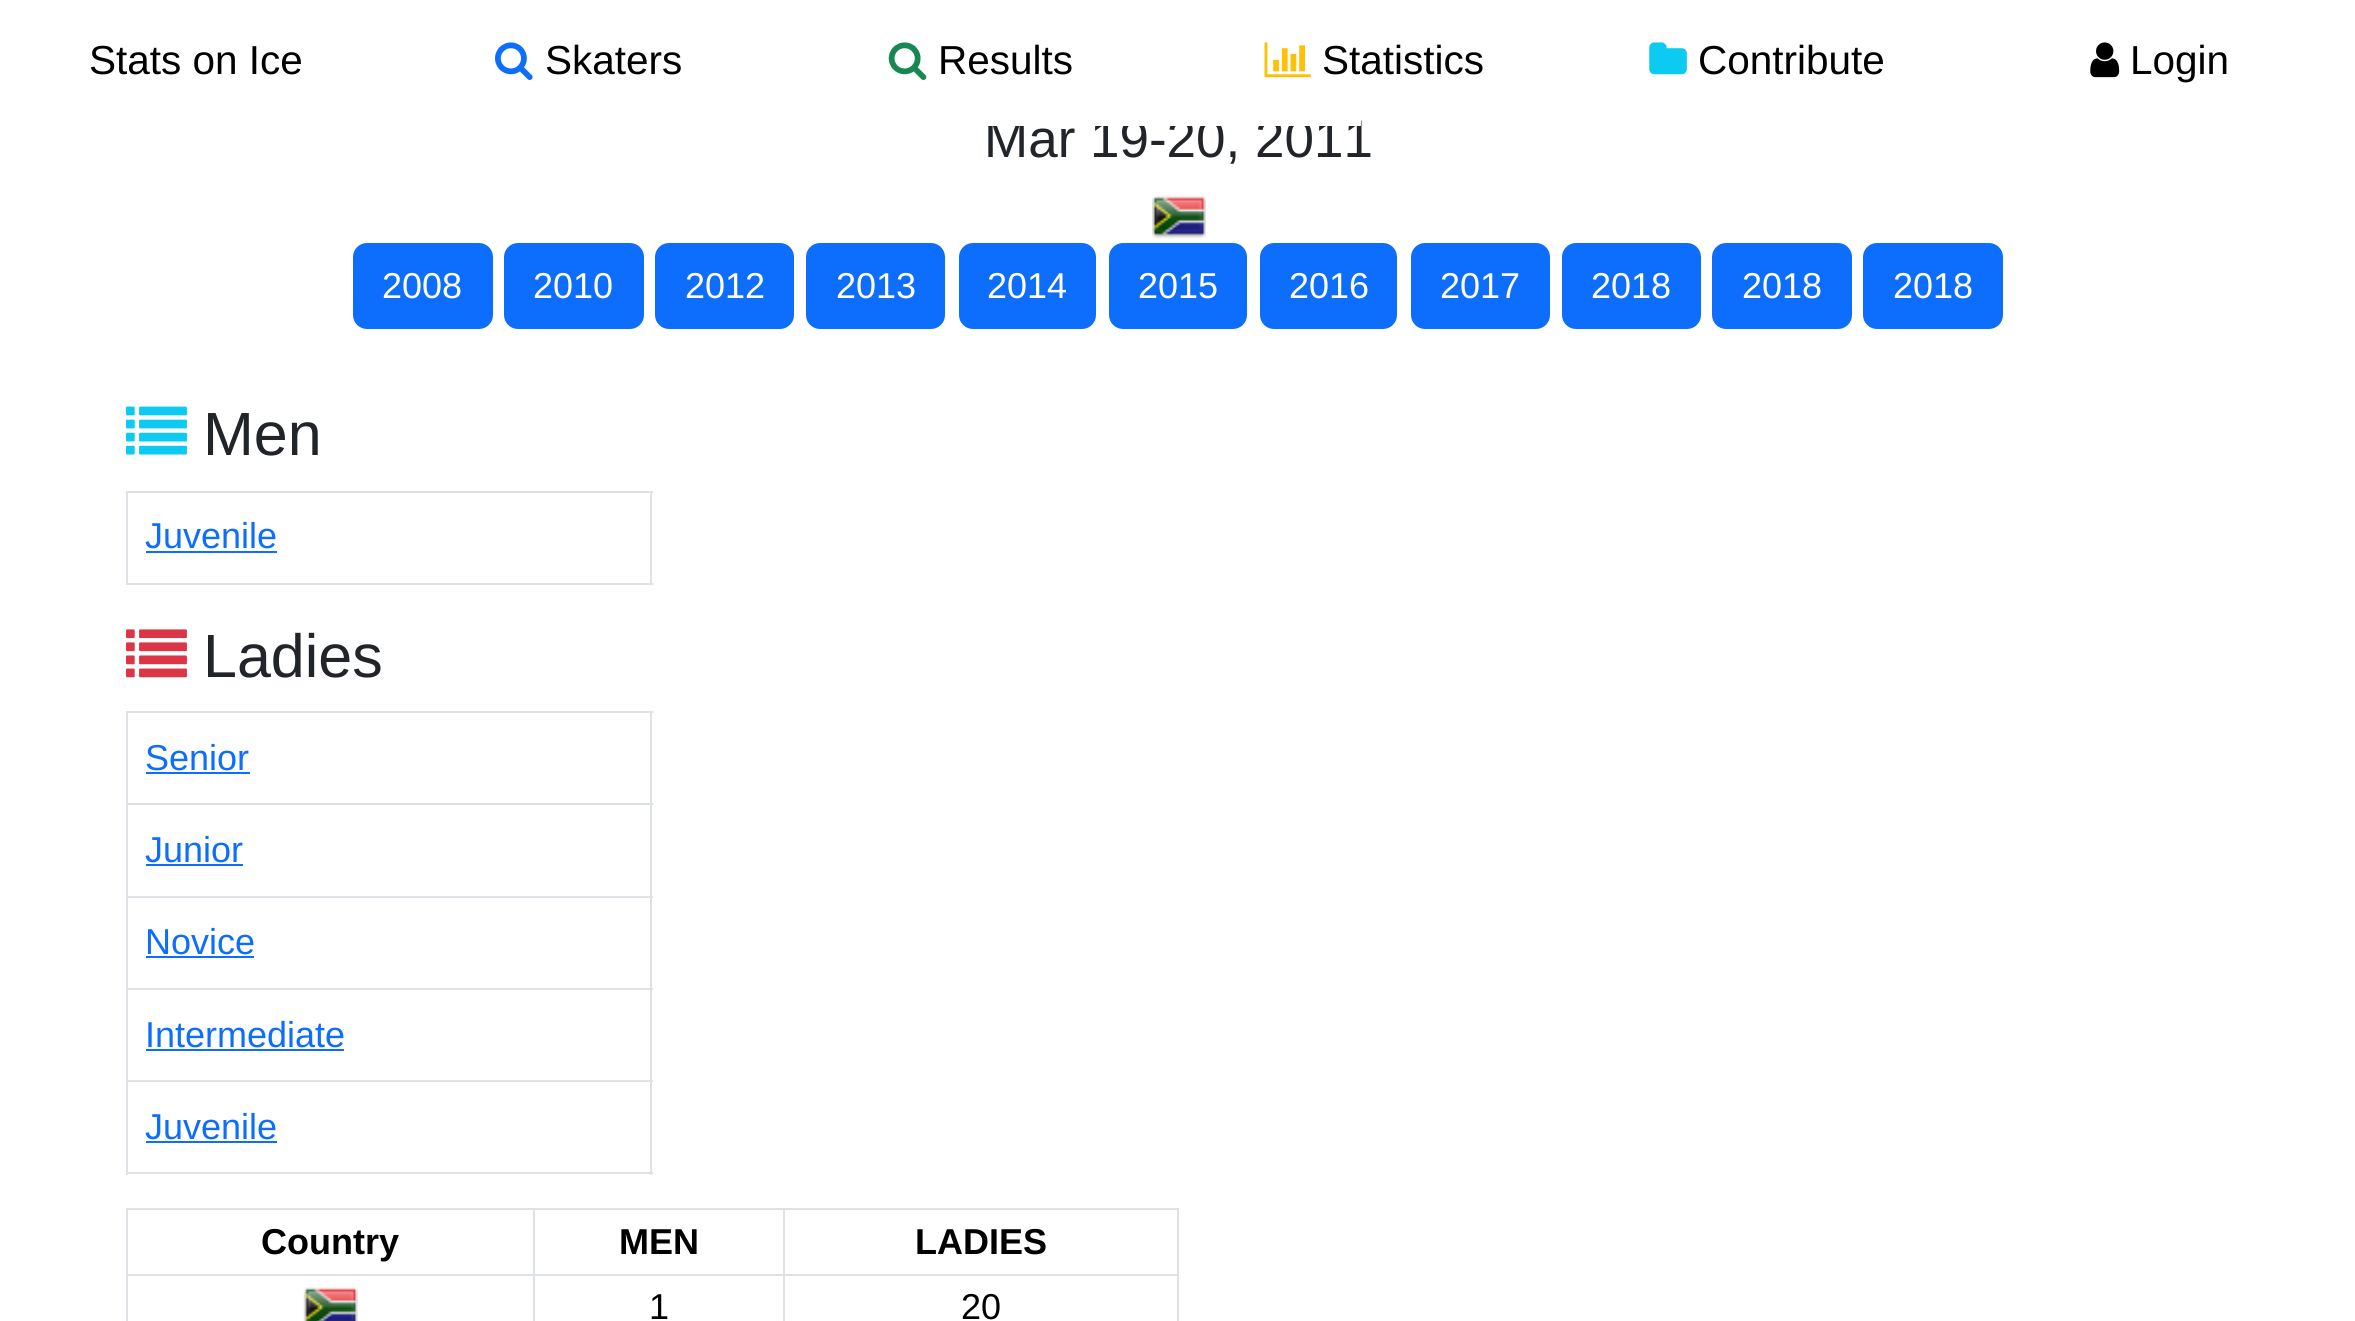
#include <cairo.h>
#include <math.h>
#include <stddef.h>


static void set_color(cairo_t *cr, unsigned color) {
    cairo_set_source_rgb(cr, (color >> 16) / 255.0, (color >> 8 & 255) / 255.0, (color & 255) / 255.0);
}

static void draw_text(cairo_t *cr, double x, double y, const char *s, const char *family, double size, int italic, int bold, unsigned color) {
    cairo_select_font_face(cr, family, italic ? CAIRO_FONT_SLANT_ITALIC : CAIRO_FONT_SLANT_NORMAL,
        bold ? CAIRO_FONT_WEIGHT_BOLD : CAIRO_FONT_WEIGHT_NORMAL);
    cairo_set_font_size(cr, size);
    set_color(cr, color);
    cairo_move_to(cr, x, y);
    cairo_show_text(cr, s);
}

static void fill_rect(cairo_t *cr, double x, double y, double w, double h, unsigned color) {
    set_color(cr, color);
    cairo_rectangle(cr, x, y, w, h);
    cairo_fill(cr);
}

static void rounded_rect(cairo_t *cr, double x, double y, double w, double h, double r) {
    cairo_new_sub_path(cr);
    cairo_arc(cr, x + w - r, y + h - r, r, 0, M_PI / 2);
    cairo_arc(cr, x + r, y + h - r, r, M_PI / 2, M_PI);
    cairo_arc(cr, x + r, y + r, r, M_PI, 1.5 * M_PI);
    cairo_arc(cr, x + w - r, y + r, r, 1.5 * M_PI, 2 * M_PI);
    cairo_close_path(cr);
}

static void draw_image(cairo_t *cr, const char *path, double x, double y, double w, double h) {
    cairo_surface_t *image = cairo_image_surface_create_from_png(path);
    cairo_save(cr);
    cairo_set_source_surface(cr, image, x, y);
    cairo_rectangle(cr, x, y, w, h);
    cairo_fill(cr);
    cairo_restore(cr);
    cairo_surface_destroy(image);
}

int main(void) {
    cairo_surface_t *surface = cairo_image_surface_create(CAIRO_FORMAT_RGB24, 2355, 1321);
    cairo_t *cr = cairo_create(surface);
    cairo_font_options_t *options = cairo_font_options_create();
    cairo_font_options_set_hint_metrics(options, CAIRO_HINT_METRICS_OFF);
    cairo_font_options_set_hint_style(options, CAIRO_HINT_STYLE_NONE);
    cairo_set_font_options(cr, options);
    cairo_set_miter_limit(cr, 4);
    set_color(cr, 0xFFFFFF);
    cairo_paint(cr);
    draw_text(cr, 984, 157, "Mar 19-20, 2011", "Liberation Sans", 53, 0, 0, 0x212529);
    fill_rect(cr, 987, 120, 374, 6, 0xFFFFFF);
    draw_text(cr, 89, 74, "Stats on Ice", "Liberation Sans", 40.5, 0, 0, 0x000000);
    draw_image(cr, "assets/img1.png", 495, 42, 38, 38);
    draw_text(cr, 545, 74, "Skaters", "Liberation Sans", 40.5, 0, 0, 0x000000);
    draw_image(cr, "assets/img2.png", 888, 42, 39, 38);
    draw_text(cr, 938, 74, "Results", "Liberation Sans", 40.5, 0, 0, 0x000000);
    draw_image(cr, "assets/img3.png", 1264, 42, 47, 36);
    draw_text(cr, 1322, 74, "Statistics", "Liberation Sans", 40.5, 0, 0, 0x000000);
    draw_image(cr, "assets/img4.png", 1649, 42, 38, 33);
    draw_text(cr, 1698, 74, "Contribute", "Liberation Sans", 40.5, 0, 0, 0x000000);
    draw_image(cr, "assets/img5.png", 2090, 42, 30, 36);
    draw_text(cr, 2130, 74, "Login", "Liberation Sans", 40.5, 0, 0, 0x000000);
    draw_image(cr, "assets/img6.png", 1152, 195, 54, 44);
    set_color(cr, 0x0D6EFD);
    rounded_rect(cr, 354, 244, 138, 84, 13);
    cairo_fill_preserve(cr);
    cairo_stroke(cr);
    draw_text(cr, 382, 298, "2008", "Liberation Sans", 36, 0, 0, 0xFFFFFF);
    set_color(cr, 0x0D6EFD);
    rounded_rect(cr, 505, 244, 138, 84, 13);
    cairo_fill_preserve(cr);
    cairo_stroke(cr);
    draw_text(cr, 533, 298, "2010", "Liberation Sans", 36, 0, 0, 0xFFFFFF);
    set_color(cr, 0x0D6EFD);
    rounded_rect(cr, 656, 244, 137, 84, 13);
    cairo_fill_preserve(cr);
    cairo_stroke(cr);
    draw_text(cr, 685, 298, "2012", "Liberation Sans", 36, 0, 0, 0xFFFFFF);
    set_color(cr, 0x0D6EFD);
    rounded_rect(cr, 807, 244, 137, 84, 13);
    cairo_fill_preserve(cr);
    cairo_stroke(cr);
    draw_text(cr, 836, 298, "2013", "Liberation Sans", 36, 0, 0, 0xFFFFFF);
    set_color(cr, 0x0D6EFD);
    rounded_rect(cr, 960, 244, 135, 84, 13);
    cairo_fill_preserve(cr);
    cairo_stroke(cr);
    draw_text(cr, 987, 298, "2014", "Liberation Sans", 36, 0, 0, 0xFFFFFF);
    set_color(cr, 0x0D6EFD);
    rounded_rect(cr, 1110, 244, 136, 84, 13);
    cairo_fill_preserve(cr);
    cairo_stroke(cr);
    draw_text(cr, 1138, 298, "2015", "Liberation Sans", 36, 0, 0, 0xFFFFFF);
    set_color(cr, 0x0D6EFD);
    rounded_rect(cr, 1261, 244, 135, 84, 13);
    cairo_fill_preserve(cr);
    cairo_stroke(cr);
    draw_text(cr, 1289, 298, "2016", "Liberation Sans", 36, 0, 0, 0xFFFFFF);
    set_color(cr, 0x0D6EFD);
    rounded_rect(cr, 1412, 244, 137, 84, 13);
    cairo_fill_preserve(cr);
    cairo_stroke(cr);
    draw_text(cr, 1440, 298, "2017", "Liberation Sans", 36, 0, 0, 0xFFFFFF);
    set_color(cr, 0x0D6EFD);
    rounded_rect(cr, 1563, 244, 137, 84, 13);
    cairo_fill_preserve(cr);
    cairo_stroke(cr);
    draw_text(cr, 1591, 298, "2018", "Liberation Sans", 36, 0, 0, 0xFFFFFF);
    set_color(cr, 0x0D6EFD);
    rounded_rect(cr, 1713, 244, 138, 84, 13);
    cairo_fill_preserve(cr);
    cairo_stroke(cr);
    draw_text(cr, 1742, 298, "2018", "Liberation Sans", 36, 0, 0, 0xFFFFFF);
    set_color(cr, 0x0D6EFD);
    rounded_rect(cr, 1864, 244, 138, 84, 13);
    cairo_fill_preserve(cr);
    cairo_stroke(cr);
    draw_text(cr, 1893, 298, "2018", "Liberation Sans", 36, 0, 0, 0xFFFFFF);
    draw_image(cr, "assets/img7.png", 126, 406, 61, 49);
    draw_text(cr, 203, 455, "Men", "Liberation Sans", 61, 0, 0, 0x212529);
    fill_rect(cr, 126, 491, 527, 2, 0xDEE2E6);
    fill_rect(cr, 126, 583, 527, 2, 0xDEE2E6);
    fill_rect(cr, 650, 491, 2, 94, 0xDEE2E6);
    fill_rect(cr, 126, 491, 2, 94, 0xDEE2E6);
    draw_text(cr, 145, 548, "Juvenile", "Liberation Sans", 36, 0, 0, 0x0D6EFD);
    fill_rect(cr, 146, 551, 131, 2, 0x0D6EFD);
    draw_image(cr, "assets/img8.png", 126, 629, 61, 49);
    draw_text(cr, 203, 677, "Ladies", "Liberation Sans", 61, 0, 0, 0x212529);
    fill_rect(cr, 126, 711, 527, 2, 0xDEE2E6);
    draw_text(cr, 145, 770, "Senior", "Liberation Sans", 36, 0, 0, 0x0D6EFD);
    fill_rect(cr, 146, 772, 104, 2, 0x0D6EFD);
    fill_rect(cr, 126, 803, 527, 2, 0xDEE2E6);
    draw_text(cr, 145, 862, "Junior", "Liberation Sans", 36, 0, 0, 0x0D6EFD);
    fill_rect(cr, 146, 864, 97, 2, 0x0D6EFD);
    fill_rect(cr, 126, 896, 527, 2, 0xDEE2E6);
    draw_text(cr, 145, 954, "Novice", "Liberation Sans", 36, 0, 0, 0x0D6EFD);
    fill_rect(cr, 146, 956, 108, 2, 0x0D6EFD);
    fill_rect(cr, 126, 988, 527, 2, 0xDEE2E6);
    draw_text(cr, 145, 1047, "Intermediate", "Liberation Sans", 36, 0, 0, 0x0D6EFD);
    fill_rect(cr, 146, 1049, 198, 2, 0x0D6EFD);
    fill_rect(cr, 126, 1080, 527, 2, 0xDEE2E6);
    fill_rect(cr, 126, 1172, 527, 2, 0xDEE2E6);
    fill_rect(cr, 650, 711, 2, 464, 0xDEE2E6);
    fill_rect(cr, 126, 711, 2, 464, 0xDEE2E6);
    draw_text(cr, 145, 1139, "Juvenile", "Liberation Sans", 36, 0, 0, 0x0D6EFD);
    fill_rect(cr, 146, 1141, 131, 2, 0x0D6EFD);
    fill_rect(cr, 126, 1208, 1053, 2, 0xDEE2E6);
    draw_text(cr, 261, 1254, "Country", "Liberation Sans", 36, 0, 1, 0x000000);
    draw_text(cr, 619, 1254, "MEN", "Liberation Sans", 36, 0, 1, 0x000000);
    draw_text(cr, 915, 1254, "LADIES", "Liberation Sans", 36, 0, 1, 0x000000);
    fill_rect(cr, 126, 1274, 1053, 2, 0xDEE2E6);
    fill_rect(cr, 126, 1208, 2, 113, 0xDEE2E6);
    draw_image(cr, "assets/img9.png", 303, 1287, 55, 34);
    fill_rect(cr, 533, 1208, 2, 113, 0xDEE2E6);
    draw_text(cr, 649, 1319, "1", "Liberation Sans", 36, 0, 0, 0x000000);
    fill_rect(cr, 1177, 1208, 2, 113, 0xDEE2E6);
    fill_rect(cr, 783, 1208, 2, 113, 0xDEE2E6);
    draw_text(cr, 961, 1319, "20", "Liberation Sans", 36, 0, 0, 0x000000);
    cairo_surface_write_to_png(surface, "output.png");
    cairo_font_options_destroy(options);
    cairo_destroy(cr);
    cairo_surface_destroy(surface);
    return 0;
}
